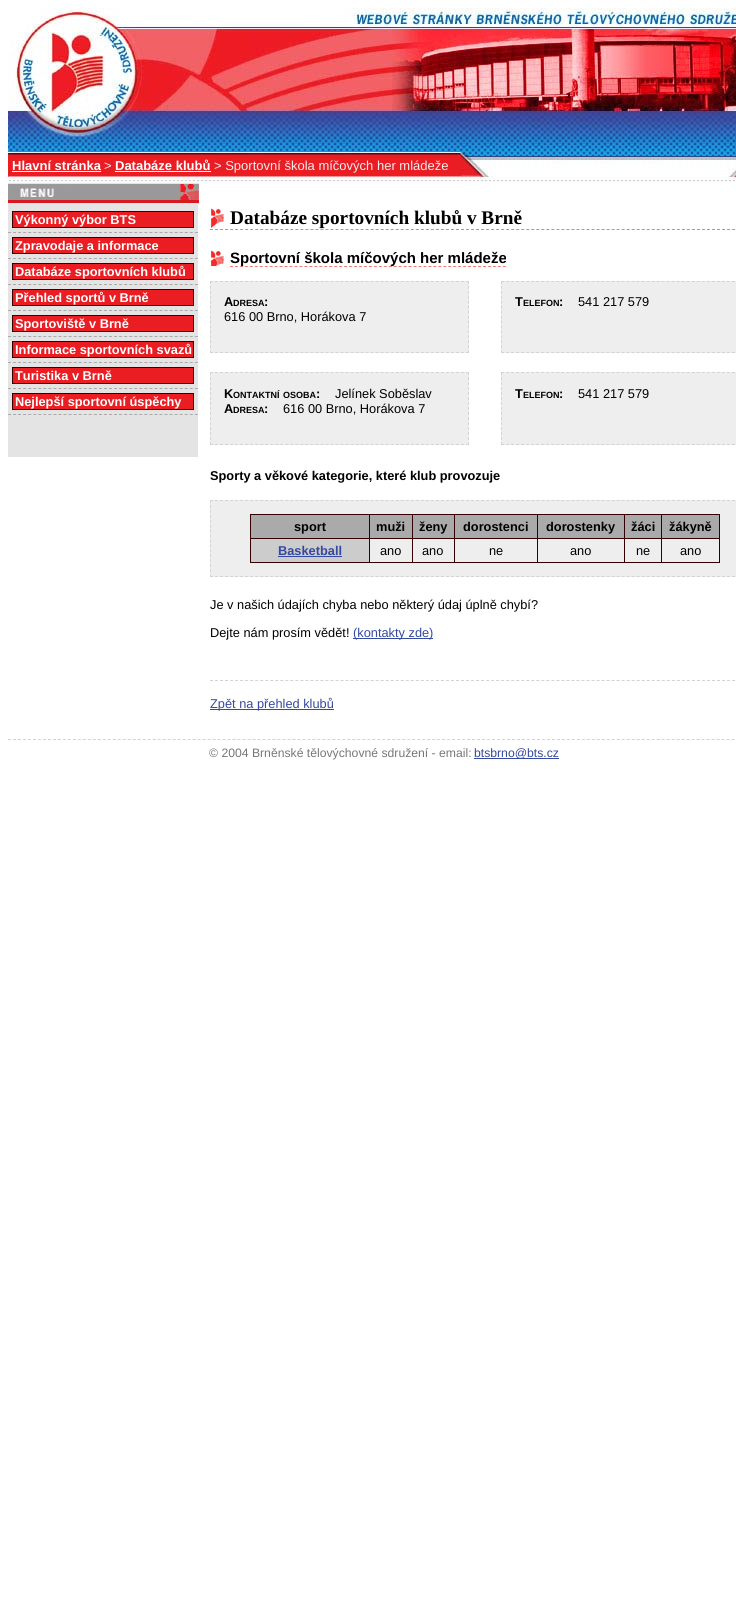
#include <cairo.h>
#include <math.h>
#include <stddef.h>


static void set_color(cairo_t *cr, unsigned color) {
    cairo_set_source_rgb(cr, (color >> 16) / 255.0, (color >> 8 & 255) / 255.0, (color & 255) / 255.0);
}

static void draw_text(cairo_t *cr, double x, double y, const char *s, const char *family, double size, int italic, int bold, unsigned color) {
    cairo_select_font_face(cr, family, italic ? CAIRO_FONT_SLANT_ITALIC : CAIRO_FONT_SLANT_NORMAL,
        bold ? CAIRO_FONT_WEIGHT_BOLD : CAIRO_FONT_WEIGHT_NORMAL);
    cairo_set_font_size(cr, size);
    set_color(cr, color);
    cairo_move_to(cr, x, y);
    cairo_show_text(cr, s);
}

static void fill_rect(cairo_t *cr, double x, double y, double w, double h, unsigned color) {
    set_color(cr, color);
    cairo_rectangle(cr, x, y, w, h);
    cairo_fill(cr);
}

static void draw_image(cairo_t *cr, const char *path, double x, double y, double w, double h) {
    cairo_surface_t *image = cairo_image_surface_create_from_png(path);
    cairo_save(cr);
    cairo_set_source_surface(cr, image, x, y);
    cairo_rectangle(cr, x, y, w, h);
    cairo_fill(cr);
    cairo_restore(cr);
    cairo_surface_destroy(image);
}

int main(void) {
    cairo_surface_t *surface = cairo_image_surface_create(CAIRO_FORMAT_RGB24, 736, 1607);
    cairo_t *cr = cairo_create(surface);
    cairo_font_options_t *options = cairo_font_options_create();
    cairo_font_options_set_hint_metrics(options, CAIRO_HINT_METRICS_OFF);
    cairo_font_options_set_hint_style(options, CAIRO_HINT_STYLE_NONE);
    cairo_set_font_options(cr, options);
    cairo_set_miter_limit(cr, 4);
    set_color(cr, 0xFFFFFF);
    cairo_paint(cr);
    draw_image(cr, "assets/img1.png", 8, 8, 728, 174);
    draw_text(cr, 12, 170, "Hlavní stránka", "Liberation Sans", 13, 0, 1, 0xFFFFFF);
    fill_rect(cr, 12, 171, 89, 1, 0xFFFFFF);
    draw_text(cr, 104, 170, ">", "Liberation Sans", 13, 0, 0, 0xEEEEEE);
    draw_text(cr, 115, 170, "Databáze klubů", "Liberation Sans", 13, 0, 1, 0xFFFFFF);
    fill_rect(cr, 115, 171, 96, 1, 0xFFFFFF);
    draw_text(cr, 214, 170, "> Sportovní škola míčových her mládeže", "Liberation Sans", 13, 0, 0, 0xEEEEEE);
    fill_rect(cr, 8, 204, 190, 253, 0xE4E4E4);
    draw_image(cr, "assets/img2.png", 8, 182, 191, 22);
    cairo_new_path(cr);
    cairo_move_to(cr, 8, 232.5);
    cairo_line_to(cr, 198, 232.5);
    set_color(cr, 0xAAAAAA);
    cairo_set_line_width(cr, 1);
    cairo_set_dash(cr, (double[]){3, 2.05}, 2, 0);
    cairo_stroke(cr);
    set_color(cr, 0xEA1D22);
    cairo_rectangle(cr, 12.5, 211.5, 181, 16);
    cairo_fill_preserve(cr);
    set_color(cr, 0x340002);
    cairo_set_dash(cr, NULL, 0, 0);
    cairo_stroke(cr);
    draw_text(cr, 15, 224, "Výkonný výbor BTS", "Liberation Sans", 12.8, 0, 1, 0xFFFFFF);
    cairo_new_path(cr);
    cairo_move_to(cr, 8, 258.5);
    cairo_line_to(cr, 198, 258.5);
    set_color(cr, 0xAAAAAA);
    cairo_set_dash(cr, (double[]){3, 2.05}, 2, 0);
    cairo_stroke(cr);
    set_color(cr, 0xEA1D22);
    cairo_rectangle(cr, 12.5, 237.5, 181, 16);
    cairo_fill_preserve(cr);
    set_color(cr, 0x340002);
    cairo_set_dash(cr, NULL, 0, 0);
    cairo_stroke(cr);
    draw_text(cr, 15, 250, "Zpravodaje a informace", "Liberation Sans", 12.8, 0, 1, 0xFFFFFF);
    cairo_new_path(cr);
    cairo_move_to(cr, 8, 284.5);
    cairo_line_to(cr, 198, 284.5);
    set_color(cr, 0xAAAAAA);
    cairo_set_dash(cr, (double[]){3, 2.05}, 2, 0);
    cairo_stroke(cr);
    set_color(cr, 0xEA1D22);
    cairo_rectangle(cr, 12.5, 263.5, 181, 16);
    cairo_fill_preserve(cr);
    set_color(cr, 0x340002);
    cairo_set_dash(cr, NULL, 0, 0);
    cairo_stroke(cr);
    draw_text(cr, 15, 276, "Databáze sportovních klubů", "Liberation Sans", 12.8, 0, 1, 0xFFFFFF);
    cairo_new_path(cr);
    cairo_move_to(cr, 8, 310.5);
    cairo_line_to(cr, 198, 310.5);
    set_color(cr, 0xAAAAAA);
    cairo_set_dash(cr, (double[]){3, 2.05}, 2, 0);
    cairo_stroke(cr);
    set_color(cr, 0xEA1D22);
    cairo_rectangle(cr, 12.5, 289.5, 181, 16);
    cairo_fill_preserve(cr);
    set_color(cr, 0x340002);
    cairo_set_dash(cr, NULL, 0, 0);
    cairo_stroke(cr);
    draw_text(cr, 15, 302, "Přehled sportů v Brně", "Liberation Sans", 12.8, 0, 1, 0xFFFFFF);
    cairo_new_path(cr);
    cairo_move_to(cr, 8, 336.5);
    cairo_line_to(cr, 198, 336.5);
    set_color(cr, 0xAAAAAA);
    cairo_set_dash(cr, (double[]){3, 2.05}, 2, 0);
    cairo_stroke(cr);
    set_color(cr, 0xEA1D22);
    cairo_rectangle(cr, 12.5, 315.5, 181, 16);
    cairo_fill_preserve(cr);
    set_color(cr, 0x340002);
    cairo_set_dash(cr, NULL, 0, 0);
    cairo_stroke(cr);
    draw_text(cr, 15, 328, "Sportoviště v Brně", "Liberation Sans", 12.8, 0, 1, 0xFFFFFF);
    cairo_new_path(cr);
    cairo_move_to(cr, 8, 362.5);
    cairo_line_to(cr, 198, 362.5);
    set_color(cr, 0xAAAAAA);
    cairo_set_dash(cr, (double[]){3, 2.05}, 2, 0);
    cairo_stroke(cr);
    set_color(cr, 0xEA1D22);
    cairo_rectangle(cr, 12.5, 341.5, 181, 16);
    cairo_fill_preserve(cr);
    set_color(cr, 0x340002);
    cairo_set_dash(cr, NULL, 0, 0);
    cairo_stroke(cr);
    draw_text(cr, 15, 354, "Informace sportovních svazů", "Liberation Sans", 12.8, 0, 1, 0xFFFFFF);
    cairo_new_path(cr);
    cairo_move_to(cr, 8, 388.5);
    cairo_line_to(cr, 198, 388.5);
    set_color(cr, 0xAAAAAA);
    cairo_set_dash(cr, (double[]){3, 2.05}, 2, 0);
    cairo_stroke(cr);
    set_color(cr, 0xEA1D22);
    cairo_rectangle(cr, 12.5, 367.5, 181, 16);
    cairo_fill_preserve(cr);
    set_color(cr, 0x340002);
    cairo_set_dash(cr, NULL, 0, 0);
    cairo_stroke(cr);
    draw_text(cr, 15, 380, "Turistika v Brně", "Liberation Sans", 12.8, 0, 1, 0xFFFFFF);
    cairo_new_path(cr);
    cairo_move_to(cr, 8, 414.5);
    cairo_line_to(cr, 198, 414.5);
    set_color(cr, 0xAAAAAA);
    cairo_set_dash(cr, (double[]){3, 2.05}, 2, 0);
    cairo_stroke(cr);
    set_color(cr, 0xEA1D22);
    cairo_rectangle(cr, 12.5, 393.5, 181, 16);
    cairo_fill_preserve(cr);
    set_color(cr, 0x340002);
    cairo_set_dash(cr, NULL, 0, 0);
    cairo_stroke(cr);
    draw_text(cr, 15, 406, "Nejlepší sportovní úspěchy", "Liberation Sans", 12.8, 0, 1, 0xFFFFFF);
    draw_image(cr, "assets/img3.png", 211, 208, 13, 20);
    cairo_new_path(cr);
    cairo_move_to(cr, 210, 229.5);
    cairo_line_to(cr, 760, 229.5);
    set_color(cr, 0xF37B78);
    cairo_set_dash(cr, (double[]){3, 2.02}, 2, 0);
    cairo_stroke(cr);
    draw_text(cr, 230, 224, "Databáze sportovních klubů v Brně", "Liberation Serif", 19.25, 0, 1, 0x000000);
    draw_image(cr, "assets/img4.png", 211, 250, 13, 16);
    cairo_new_path(cr);
    cairo_move_to(cr, 230, 266.5);
    cairo_line_to(cr, 506, 266.5);
    set_color(cr, 0xF37B78);
    cairo_set_dash(cr, (double[]){3, 1.96}, 2, 0);
    cairo_stroke(cr);
    draw_text(cr, 230, 263, "Sportovní škola míčových her mládeže", "Liberation Sans", 15, 0, 1, 0x000000);
    fill_rect(cr, 210, 281, 259, 72, 0xEEEEEE);
    cairo_new_path(cr);
    cairo_move_to(cr, 210, 281.5);
    cairo_line_to(cr, 469, 281.5);
    set_color(cr, 0xD4D3CF);
    cairo_set_dash(cr, (double[]){3, 2.02}, 2, 0);
    cairo_stroke(cr);
    cairo_new_path(cr);
    cairo_move_to(cr, 468.5, 281);
    cairo_line_to(cr, 468.5, 353);
    cairo_set_dash(cr, (double[]){3, 1.93}, 2, 0);
    cairo_stroke(cr);
    cairo_new_path(cr);
    cairo_move_to(cr, 210, 352.5);
    cairo_line_to(cr, 469, 352.5);
    cairo_set_dash(cr, (double[]){3, 2.02}, 2, 0);
    cairo_stroke(cr);
    cairo_new_path(cr);
    cairo_move_to(cr, 210.5, 281);
    cairo_line_to(cr, 210.5, 353);
    cairo_set_dash(cr, (double[]){3, 1.93}, 2, 0);
    cairo_stroke(cr);
    draw_text(cr, 224, 306, "A", "Liberation Sans", 12.8, 0, 1, 0x000000);
    draw_text(cr, 233, 306, "DRESA", "Liberation Sans", 9, 0, 1, 0x000000);
    draw_text(cr, 264, 306, ":", "Liberation Sans", 12.8, 0, 1, 0x000000);
    draw_text(cr, 224, 321, "616 00 Brno, Horákova 7", "Liberation Sans", 12.8, 0, 0, 0x000000);
    fill_rect(cr, 501, 281, 235, 72, 0xEEEEEE);
    cairo_new_path(cr);
    cairo_move_to(cr, 501, 281.5);
    cairo_line_to(cr, 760, 281.5);
    set_color(cr, 0xD4D3CF);
    cairo_set_dash(cr, (double[]){3, 2.02}, 2, 0);
    cairo_stroke(cr);
    cairo_new_path(cr);
    cairo_move_to(cr, 501, 352.5);
    cairo_line_to(cr, 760, 352.5);
    cairo_stroke(cr);
    cairo_new_path(cr);
    cairo_move_to(cr, 501.5, 281);
    cairo_line_to(cr, 501.5, 353);
    cairo_set_dash(cr, (double[]){3, 1.93}, 2, 0);
    cairo_stroke(cr);
    draw_text(cr, 515, 306, "T", "Liberation Sans", 12.8, 0, 1, 0x000000);
    draw_text(cr, 523, 306, "ELEFON", "Liberation Sans", 9, 0, 1, 0x000000);
    draw_text(cr, 559, 306, ":", "Liberation Sans", 12.8, 0, 1, 0x000000);
    draw_text(cr, 578, 306, "541 217 579", "Liberation Sans", 12.8, 0, 0, 0x000000);
    fill_rect(cr, 210, 372, 259, 73, 0xEEEEEE);
    cairo_new_path(cr);
    cairo_move_to(cr, 210, 372.5);
    cairo_line_to(cr, 469, 372.5);
    set_color(cr, 0xD4D3CF);
    cairo_set_dash(cr, (double[]){3, 2.02}, 2, 0);
    cairo_stroke(cr);
    cairo_new_path(cr);
    cairo_move_to(cr, 468.5, 372);
    cairo_line_to(cr, 468.5, 445);
    cairo_set_dash(cr, (double[]){3, 2}, 2, 0);
    cairo_stroke(cr);
    cairo_new_path(cr);
    cairo_move_to(cr, 210, 444.5);
    cairo_line_to(cr, 469, 444.5);
    cairo_set_dash(cr, (double[]){3, 2.02}, 2, 0);
    cairo_stroke(cr);
    cairo_new_path(cr);
    cairo_move_to(cr, 210.5, 372);
    cairo_line_to(cr, 210.5, 445);
    cairo_set_dash(cr, (double[]){3, 2}, 2, 0);
    cairo_stroke(cr);
    draw_text(cr, 224, 398, "K", "Liberation Sans", 12.8, 0, 1, 0x000000);
    draw_text(cr, 233, 398, "ONTAKTNÍ", "Liberation Sans", 9, 0, 1, 0x000000);
    draw_text(cr, 283, 398, "OSOBA", "Liberation Sans", 9, 0, 1, 0x000000);
    draw_text(cr, 316, 398, ":", "Liberation Sans", 12.8, 0, 1, 0x000000);
    draw_text(cr, 335, 398, "Jelínek Soběslav", "Liberation Sans", 12.8, 0, 0, 0x000000);
    draw_text(cr, 224, 413, "A", "Liberation Sans", 12.8, 0, 1, 0x000000);
    draw_text(cr, 233, 413, "DRESA", "Liberation Sans", 9, 0, 1, 0x000000);
    draw_text(cr, 264, 413, ":", "Liberation Sans", 12.8, 0, 1, 0x000000);
    draw_text(cr, 283, 413, "616 00 Brno, Horákova 7", "Liberation Sans", 12.8, 0, 0, 0x000000);
    fill_rect(cr, 501, 372, 235, 73, 0xEEEEEE);
    cairo_new_path(cr);
    cairo_move_to(cr, 501, 372.5);
    cairo_line_to(cr, 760, 372.5);
    set_color(cr, 0xD4D3CF);
    cairo_set_dash(cr, (double[]){3, 2.02}, 2, 0);
    cairo_stroke(cr);
    cairo_new_path(cr);
    cairo_move_to(cr, 501, 444.5);
    cairo_line_to(cr, 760, 444.5);
    cairo_stroke(cr);
    cairo_new_path(cr);
    cairo_move_to(cr, 501.5, 372);
    cairo_line_to(cr, 501.5, 445);
    cairo_set_dash(cr, (double[]){3, 2}, 2, 0);
    cairo_stroke(cr);
    draw_text(cr, 515, 398, "T", "Liberation Sans", 12.8, 0, 1, 0x000000);
    draw_text(cr, 523, 398, "ELEFON", "Liberation Sans", 9, 0, 1, 0x000000);
    draw_text(cr, 559, 398, ":", "Liberation Sans", 12.8, 0, 1, 0x000000);
    draw_text(cr, 578, 398, "541 217 579", "Liberation Sans", 12.8, 0, 0, 0x000000);
    draw_text(cr, 210, 480, "Sporty a věkové kategorie, které klub provozuje", "Liberation Sans", 12.8, 0, 1, 0x000000);
    fill_rect(cr, 210, 500, 526, 77, 0xEEEEEE);
    cairo_new_path(cr);
    cairo_move_to(cr, 210, 500.5);
    cairo_line_to(cr, 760, 500.5);
    set_color(cr, 0xD4D3CF);
    cairo_set_dash(cr, (double[]){3, 2.02}, 2, 0);
    cairo_stroke(cr);
    cairo_new_path(cr);
    cairo_move_to(cr, 210, 576.5);
    cairo_line_to(cr, 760, 576.5);
    cairo_stroke(cr);
    cairo_new_path(cr);
    cairo_move_to(cr, 210.5, 500);
    cairo_line_to(cr, 210.5, 577);
    cairo_set_dash(cr, (double[]){3, 1.93}, 2, 0);
    cairo_stroke(cr);
    fill_rect(cr, 251, 515, 468, 23, 0xAAAAAA);
    fill_rect(cr, 661, 514, 59, 1, 0x340002);
    fill_rect(cr, 661, 538, 59, 1, 0x340002);
    fill_rect(cr, 719, 538, 1, 25, 0x340002);
    fill_rect(cr, 661, 562, 59, 1, 0x340002);
    fill_rect(cr, 661, 538, 1, 25, 0x340002);
    fill_rect(cr, 624, 538, 38, 1, 0x340002);
    fill_rect(cr, 661, 514, 1, 25, 0x340002);
    fill_rect(cr, 624, 514, 38, 1, 0x340002);
    fill_rect(cr, 624, 562, 38, 1, 0x340002);
    fill_rect(cr, 624, 538, 1, 25, 0x340002);
    fill_rect(cr, 537, 538, 88, 1, 0x340002);
    fill_rect(cr, 624, 514, 1, 25, 0x340002);
    fill_rect(cr, 537, 514, 88, 1, 0x340002);
    fill_rect(cr, 537, 562, 88, 1, 0x340002);
    fill_rect(cr, 537, 538, 1, 25, 0x340002);
    fill_rect(cr, 454, 538, 84, 1, 0x340002);
    fill_rect(cr, 537, 514, 1, 25, 0x340002);
    fill_rect(cr, 454, 514, 84, 1, 0x340002);
    fill_rect(cr, 454, 562, 84, 1, 0x340002);
    fill_rect(cr, 454, 538, 1, 25, 0x340002);
    fill_rect(cr, 412, 538, 43, 1, 0x340002);
    fill_rect(cr, 454, 514, 1, 25, 0x340002);
    fill_rect(cr, 412, 514, 43, 1, 0x340002);
    fill_rect(cr, 412, 562, 43, 1, 0x340002);
    fill_rect(cr, 412, 538, 1, 25, 0x340002);
    fill_rect(cr, 369, 538, 44, 1, 0x340002);
    fill_rect(cr, 412, 514, 1, 25, 0x340002);
    fill_rect(cr, 369, 514, 44, 1, 0x340002);
    fill_rect(cr, 369, 562, 44, 1, 0x340002);
    fill_rect(cr, 369, 538, 1, 25, 0x340002);
    fill_rect(cr, 250, 538, 120, 1, 0x340002);
    fill_rect(cr, 369, 514, 1, 25, 0x340002);
    fill_rect(cr, 250, 514, 120, 1, 0x340002);
    fill_rect(cr, 250, 562, 120, 1, 0x340002);
    fill_rect(cr, 250, 538, 1, 25, 0x340002);
    fill_rect(cr, 250, 514, 1, 25, 0x340002);
    draw_text(cr, 294, 531, "sport", "Liberation Sans", 12.8, 0, 1, 0x000000);
    draw_text(cr, 376, 531, "muži", "Liberation Sans", 12.8, 0, 1, 0x000000);
    draw_text(cr, 419, 531, "ženy", "Liberation Sans", 12.8, 0, 1, 0x000000);
    draw_text(cr, 463, 531, "dorostenci", "Liberation Sans", 12.8, 0, 1, 0x000000);
    draw_text(cr, 546, 531, "dorostenky", "Liberation Sans", 12.8, 0, 1, 0x000000);
    draw_text(cr, 631, 531, "žáci", "Liberation Sans", 12.8, 0, 1, 0x000000);
    fill_rect(cr, 719, 514, 1, 25, 0x340002);
    draw_text(cr, 669, 531, "žákyně", "Liberation Sans", 12.8, 0, 1, 0x000000);
    fill_rect(cr, 251, 539, 118, 23, 0xCCCCCC);
    draw_text(cr, 278, 555, "Basketball", "Liberation Sans", 12.8, 0, 1, 0x3549A0);
    fill_rect(cr, 278, 556, 64, 1, 0x3549A0);
    draw_text(cr, 380, 555, "ano", "Liberation Sans", 12.8, 0, 0, 0x000000);
    draw_text(cr, 422, 555, "ano", "Liberation Sans", 12.8, 0, 0, 0x000000);
    draw_text(cr, 489, 555, "ne", "Liberation Sans", 12.8, 0, 0, 0x000000);
    draw_text(cr, 570, 555, "ano", "Liberation Sans", 12.8, 0, 0, 0x000000);
    draw_text(cr, 636, 555, "ne", "Liberation Sans", 12.8, 0, 0, 0x000000);
    draw_text(cr, 680, 555, "ano", "Liberation Sans", 12.8, 0, 0, 0x000000);
    draw_text(cr, 210, 609, "Je v našich údajích chyba nebo některý údaj úplně chybí?", "Liberation Sans", 12.8, 0, 0, 0x000000);
    draw_text(cr, 210, 637, "Dejte nám prosím vědět!", "Liberation Sans", 12.8, 0, 0, 0x000000);
    fill_rect(cr, 353, 638, 80, 1, 0x3549A0);
    draw_text(cr, 353, 637, "(kontakty zde)", "Liberation Sans", 12.8, 0, 0, 0x3549A0);
    cairo_new_path(cr);
    cairo_move_to(cr, 210, 680.5);
    cairo_line_to(cr, 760, 680.5);
    set_color(cr, 0xD4D3CF);
    cairo_set_dash(cr, (double[]){3, 2.02}, 2, 0);
    cairo_stroke(cr);
    fill_rect(cr, 210, 709, 124, 1, 0x3549A0);
    draw_text(cr, 210, 708, "Zpět na přehled klubů", "Liberation Sans", 12.8, 0, 0, 0x3549A0);
    cairo_new_path(cr);
    cairo_move_to(cr, 8, 739.5);
    cairo_line_to(cr, 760, 739.5);
    set_color(cr, 0xD4D3CF);
    cairo_set_dash(cr, (double[]){3, 1.99}, 2, 0);
    cairo_stroke(cr);
    draw_text(cr, 209, 757, "© 2004 Brněnské tělovýchovné sdružení - email:", "Liberation Sans", 12.2, 0, 0, 0x777777);
    fill_rect(cr, 474, 758, 85, 1, 0x3549A0);
    draw_text(cr, 474, 757, "btsbrno@bts.cz", "Liberation Sans", 12.2, 0, 0, 0x3549A0);
    cairo_surface_write_to_png(surface, "output.png");
    cairo_font_options_destroy(options);
    cairo_destroy(cr);
    cairo_surface_destroy(surface);
    return 0;
}
